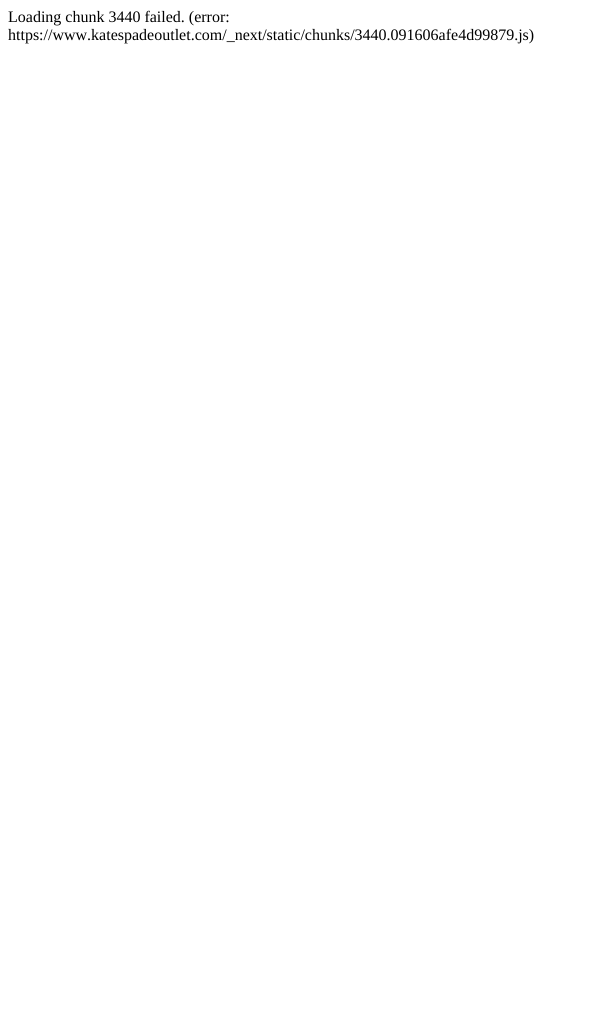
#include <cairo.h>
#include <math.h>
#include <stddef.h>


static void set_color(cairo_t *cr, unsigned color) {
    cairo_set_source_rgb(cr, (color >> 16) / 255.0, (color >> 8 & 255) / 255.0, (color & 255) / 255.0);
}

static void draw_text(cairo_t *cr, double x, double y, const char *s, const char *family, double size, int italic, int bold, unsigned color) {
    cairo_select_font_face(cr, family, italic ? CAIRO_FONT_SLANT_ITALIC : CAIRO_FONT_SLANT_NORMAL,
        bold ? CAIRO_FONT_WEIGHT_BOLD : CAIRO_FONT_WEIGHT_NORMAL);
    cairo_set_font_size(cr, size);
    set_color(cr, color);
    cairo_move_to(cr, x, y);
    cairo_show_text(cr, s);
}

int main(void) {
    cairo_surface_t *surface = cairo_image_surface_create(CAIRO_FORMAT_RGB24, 603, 1021);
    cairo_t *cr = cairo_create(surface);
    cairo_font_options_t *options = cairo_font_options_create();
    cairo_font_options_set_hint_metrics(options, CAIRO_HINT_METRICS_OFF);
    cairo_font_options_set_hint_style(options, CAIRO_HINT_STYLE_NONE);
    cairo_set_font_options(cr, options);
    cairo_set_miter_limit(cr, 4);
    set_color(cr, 0xFFFFFF);
    cairo_paint(cr);
    draw_text(cr, 8, 22, "Loading chunk 3440 failed. (error:", "Liberation Serif", 16, 0, 0, 0x000000);
    draw_text(cr, 8, 40, "https://www.katespadeoutlet.com/_next/static/chunks/3440.091606afe4d99879.js)", "Liberation Serif", 16, 0, 0, 0x000000);
    cairo_surface_write_to_png(surface, "output.png");
    cairo_font_options_destroy(options);
    cairo_destroy(cr);
    cairo_surface_destroy(surface);
    return 0;
}
